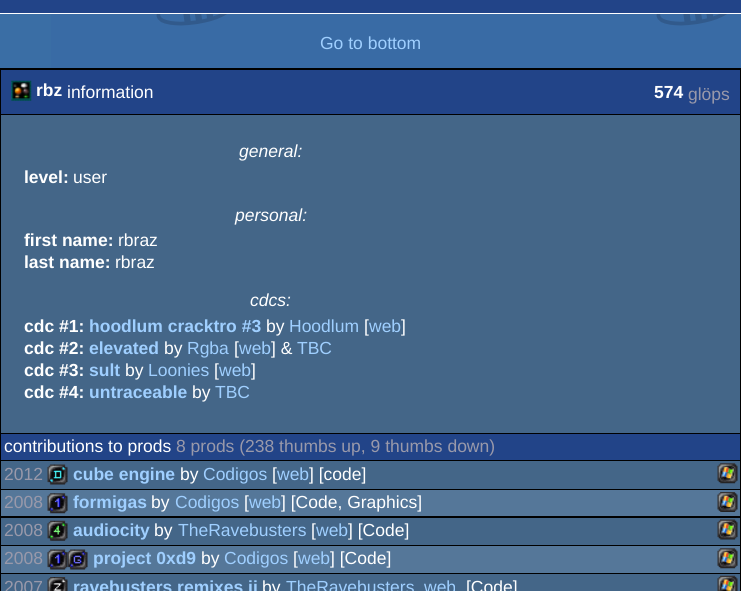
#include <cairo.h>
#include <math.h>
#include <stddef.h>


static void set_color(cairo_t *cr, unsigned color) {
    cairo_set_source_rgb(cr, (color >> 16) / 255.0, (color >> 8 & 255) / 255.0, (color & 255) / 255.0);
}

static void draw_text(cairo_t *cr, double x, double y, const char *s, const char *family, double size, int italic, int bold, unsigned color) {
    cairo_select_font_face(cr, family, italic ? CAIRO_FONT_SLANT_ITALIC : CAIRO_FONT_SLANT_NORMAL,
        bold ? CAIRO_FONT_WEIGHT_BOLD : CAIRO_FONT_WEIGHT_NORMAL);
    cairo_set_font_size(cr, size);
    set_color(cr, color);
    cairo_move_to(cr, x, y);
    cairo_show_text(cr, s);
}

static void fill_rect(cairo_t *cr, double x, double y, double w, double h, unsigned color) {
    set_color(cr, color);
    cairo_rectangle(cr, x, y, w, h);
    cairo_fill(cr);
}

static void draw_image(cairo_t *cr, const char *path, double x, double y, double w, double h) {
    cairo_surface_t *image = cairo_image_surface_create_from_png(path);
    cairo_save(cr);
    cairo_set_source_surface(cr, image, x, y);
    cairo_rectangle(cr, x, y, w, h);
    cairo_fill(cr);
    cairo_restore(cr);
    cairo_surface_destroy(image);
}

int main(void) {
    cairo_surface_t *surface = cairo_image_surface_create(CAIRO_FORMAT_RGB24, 741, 591);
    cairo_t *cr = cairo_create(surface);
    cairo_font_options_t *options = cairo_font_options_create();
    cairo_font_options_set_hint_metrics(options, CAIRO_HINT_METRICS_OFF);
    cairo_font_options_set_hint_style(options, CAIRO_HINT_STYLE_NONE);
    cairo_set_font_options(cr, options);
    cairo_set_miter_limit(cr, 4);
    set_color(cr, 0x3A6EA5);
    cairo_paint(cr);
    draw_image(cr, "assets/img1.png", 51, 14, 690, 54);
    fill_rect(cr, 0, 0, 741, 13, 0x224488);
    fill_rect(cr, 0, 13, 741, 1, 0xFFFFFF);
    draw_text(cr, 320, 49, "Go to bottom", "Liberation Sans", 17.5, 0, 0, 0x9FCFFF);
    fill_rect(cr, 0, 68, 741, 523, 0x000000);
    fill_rect(cr, 1, 70, 739, 44, 0x224488);
    draw_image(cr, "assets/img2.png", 11, 80, 21, 21);
    draw_text(cr, 36, 96, "rbz", "Liberation Sans", 17.5, 0, 1, 0xFFFFFF);
    draw_text(cr, 67, 98, "information", "Liberation Sans", 17.5, 0, 0, 0xFFFFFF);
    draw_text(cr, 654, 98, "574", "Liberation Sans", 17.5, 0, 1, 0xFFFFFF);
    draw_text(cr, 688, 100, "glöps", "Liberation Sans", 17.5, 0, 0, 0x9999AA);
    fill_rect(cr, 1, 115, 739, 318, 0x446688);
    draw_text(cr, 239, 157, "general:", "Liberation Sans", 17.5, 1, 0, 0xFFFFFF);
    draw_text(cr, 24, 183, "level:", "Liberation Sans", 17.5, 0, 1, 0xFFFFFF);
    draw_text(cr, 73, 183, "user", "Liberation Sans", 17.5, 0, 0, 0xFFFFFF);
    draw_text(cr, 235, 221, "personal:", "Liberation Sans", 17.5, 1, 0, 0xFFFFFF);
    draw_text(cr, 24, 246, "first name:", "Liberation Sans", 17.5, 0, 1, 0xFFFFFF);
    draw_text(cr, 118, 246, "rbraz", "Liberation Sans", 17.5, 0, 0, 0xFFFFFF);
    draw_text(cr, 24, 268, "last name:", "Liberation Sans", 17.5, 0, 1, 0xFFFFFF);
    draw_text(cr, 115, 268, "rbraz", "Liberation Sans", 17.5, 0, 0, 0xFFFFFF);
    draw_text(cr, 250, 306, "cdcs:", "Liberation Sans", 17.5, 1, 0, 0xFFFFFF);
    draw_text(cr, 24, 332, "cdc #1:", "Liberation Sans", 17.5, 0, 1, 0xFFFFFF);
    draw_text(cr, 89, 332, "hoodlum cracktro #3", "Liberation Sans", 17.5, 0, 1, 0x9FCFFF);
    draw_text(cr, 266, 332, "by", "Liberation Sans", 17.5, 0, 0, 0xFFFFFF);
    draw_text(cr, 289, 332, "Hoodlum", "Liberation Sans", 17.5, 0, 0, 0x9FCFFF);
    draw_text(cr, 364, 332, "[", "Liberation Sans", 17.5, 0, 0, 0xFFFFFF);
    draw_text(cr, 369, 332, "web", "Liberation Sans", 17.5, 0, 0, 0x9FCFFF);
    draw_text(cr, 401, 332, "]", "Liberation Sans", 17.5, 0, 0, 0xFFFFFF);
    draw_text(cr, 24, 354, "cdc #2:", "Liberation Sans", 17.5, 0, 1, 0xFFFFFF);
    draw_text(cr, 89, 354, "elevated", "Liberation Sans", 17.5, 0, 1, 0x9FCFFF);
    draw_text(cr, 164, 354, "by", "Liberation Sans", 17.5, 0, 0, 0xFFFFFF);
    draw_text(cr, 187, 354, "Rgba", "Liberation Sans", 17.5, 0, 0, 0x9FCFFF);
    draw_text(cr, 234, 354, "[", "Liberation Sans", 17.5, 0, 0, 0xFFFFFF);
    draw_text(cr, 239, 354, "web", "Liberation Sans", 17.5, 0, 0, 0x9FCFFF);
    draw_text(cr, 271, 354, "] &", "Liberation Sans", 17.5, 0, 0, 0xFFFFFF);
    draw_text(cr, 297, 354, "TBC", "Liberation Sans", 17.5, 0, 0, 0x9FCFFF);
    draw_text(cr, 24, 376, "cdc #3:", "Liberation Sans", 17.5, 0, 1, 0xFFFFFF);
    draw_text(cr, 89, 376, "sult", "Liberation Sans", 17.5, 0, 1, 0x9FCFFF);
    draw_text(cr, 125, 376, "by", "Liberation Sans", 17.5, 0, 0, 0xFFFFFF);
    draw_text(cr, 148, 376, "Loonies", "Liberation Sans", 17.5, 0, 0, 0x9FCFFF);
    draw_text(cr, 214, 376, "[", "Liberation Sans", 17.5, 0, 0, 0xFFFFFF);
    draw_text(cr, 219, 376, "web", "Liberation Sans", 17.5, 0, 0, 0x9FCFFF);
    draw_text(cr, 251, 376, "]", "Liberation Sans", 17.5, 0, 0, 0xFFFFFF);
    draw_text(cr, 24, 398, "cdc #4:", "Liberation Sans", 17.5, 0, 1, 0xFFFFFF);
    draw_text(cr, 89, 398, "untraceable", "Liberation Sans", 17.5, 0, 1, 0x9FCFFF);
    draw_text(cr, 192, 398, "by", "Liberation Sans", 17.5, 0, 0, 0xFFFFFF);
    draw_text(cr, 215, 398, "TBC", "Liberation Sans", 17.5, 0, 0, 0x9FCFFF);
    fill_rect(cr, 1, 434, 739, 26, 0x224488);
    draw_text(cr, 4, 452, "contributions to prods", "Liberation Sans", 17.5, 0, 0, 0xFFFFFF);
    draw_text(cr, 176, 452, "8 prods (238 thumbs up, 9 thumbs down)", "Liberation Sans", 17.5, 0, 0, 0x9999AA);
    fill_rect(cr, 1, 461, 739, 28, 0x446688);
    draw_text(cr, 4, 480, "2012", "Liberation Sans", 17.5, 0, 0, 0x9999AA);
    draw_image(cr, "assets/img3.png", 47, 464, 21, 21);
    draw_text(cr, 73, 480, "cube engine", "Liberation Sans", 17.5, 0, 1, 0x9FCFFF);
    draw_text(cr, 180, 480, "by", "Liberation Sans", 17.5, 0, 0, 0xFFFFFF);
    draw_text(cr, 203, 480, "Codigos", "Liberation Sans", 17.5, 0, 0, 0x9FCFFF);
    draw_text(cr, 272, 480, "[", "Liberation Sans", 17.5, 0, 0, 0xFFFFFF);
    draw_text(cr, 277, 480, "web", "Liberation Sans", 17.5, 0, 0, 0x9FCFFF);
    draw_text(cr, 309, 480, "] [code]", "Liberation Sans", 17.5, 0, 0, 0xFFFFFF);
    draw_image(cr, "assets/img4.png", 717, 463, 21, 21);
    fill_rect(cr, 1, 490, 739, 26, 0x557799);
    draw_text(cr, 4, 508, "2008", "Liberation Sans", 17.5, 0, 0, 0x9999AA);
    draw_image(cr, "assets/img5.png", 47, 493, 21, 21);
    draw_text(cr, 73, 508, "formigas", "Liberation Sans", 17.5, 0, 1, 0x9FCFFF);
    draw_text(cr, 151, 508, "by", "Liberation Sans", 17.5, 0, 0, 0xFFFFFF);
    draw_text(cr, 175, 508, "Codigos", "Liberation Sans", 17.5, 0, 0, 0x9FCFFF);
    draw_text(cr, 244, 508, "[", "Liberation Sans", 17.5, 0, 0, 0xFFFFFF);
    draw_text(cr, 249, 508, "web", "Liberation Sans", 17.5, 0, 0, 0x9FCFFF);
    draw_text(cr, 281, 508, "] [Code, Graphics]", "Liberation Sans", 17.5, 0, 0, 0xFFFFFF);
    draw_image(cr, "assets/img6.png", 717, 492, 21, 20);
    fill_rect(cr, 1, 518, 739, 27, 0x446688);
    draw_text(cr, 4, 536, "2008", "Liberation Sans", 17.5, 0, 0, 0x9999AA);
    draw_image(cr, "assets/img7.png", 47, 520, 21, 21);
    draw_text(cr, 73, 536, "audiocity", "Liberation Sans", 17.5, 0, 1, 0x9FCFFF);
    draw_text(cr, 154, 536, "by", "Liberation Sans", 17.5, 0, 0, 0xFFFFFF);
    draw_text(cr, 178, 536, "TheRavebusters", "Liberation Sans", 17.5, 0, 0, 0x9FCFFF);
    draw_text(cr, 311, 536, "[", "Liberation Sans", 17.5, 0, 0, 0xFFFFFF);
    draw_text(cr, 316, 536, "web", "Liberation Sans", 17.5, 0, 0, 0x9FCFFF);
    draw_text(cr, 348, 536, "] [Code]", "Liberation Sans", 17.5, 0, 0, 0xFFFFFF);
    draw_image(cr, "assets/img8.png", 717, 519, 21, 21);
    fill_rect(cr, 1, 546, 739, 27, 0x557799);
    draw_text(cr, 4, 564, "2008", "Liberation Sans", 17.5, 0, 0, 0x9999AA);
    draw_image(cr, "assets/img9.png", 47, 549, 21, 21);
    draw_image(cr, "assets/img10.png", 67, 549, 21, 21);
    draw_text(cr, 93, 564, "project 0xd9", "Liberation Sans", 17.5, 0, 1, 0x9FCFFF);
    draw_text(cr, 201, 564, "by", "Liberation Sans", 17.5, 0, 0, 0xFFFFFF);
    draw_text(cr, 224, 564, "Codigos", "Liberation Sans", 17.5, 0, 0, 0x9FCFFF);
    draw_text(cr, 293, 564, "[", "Liberation Sans", 17.5, 0, 0, 0xFFFFFF);
    draw_text(cr, 298, 564, "web", "Liberation Sans", 17.5, 0, 0, 0x9FCFFF);
    draw_text(cr, 330, 564, "] [Code]", "Liberation Sans", 17.5, 0, 0, 0xFFFFFF);
    draw_image(cr, "assets/img11.png", 717, 548, 21, 21);
    fill_rect(cr, 1, 574, 739, 17, 0x446688);
    draw_text(cr, 4, 593, "2007", "Liberation Sans", 17.5, 0, 0, 0x9999AA);
    draw_image(cr, "assets/img12.png", 47, 577, 21, 14);
    draw_text(cr, 73, 593, "ravebusters remixes ii", "Liberation Sans", 17.5, 0, 1, 0x9FCFFF);
    draw_text(cr, 262, 593, "by", "Liberation Sans", 17.5, 0, 0, 0xFFFFFF);
    draw_text(cr, 286, 593, "TheRavebusters", "Liberation Sans", 17.5, 0, 0, 0x9FCFFF);
    draw_text(cr, 424, 593, "web", "Liberation Sans", 17.5, 0, 0, 0x9FCFFF);
    draw_text(cr, 466, 593, "[Code]", "Liberation Sans", 17.5, 0, 0, 0xFFFFFF);
    draw_image(cr, "assets/img13.png", 717, 575, 21, 16);
    cairo_surface_write_to_png(surface, "output.png");
    cairo_font_options_destroy(options);
    cairo_destroy(cr);
    cairo_surface_destroy(surface);
    return 0;
}
